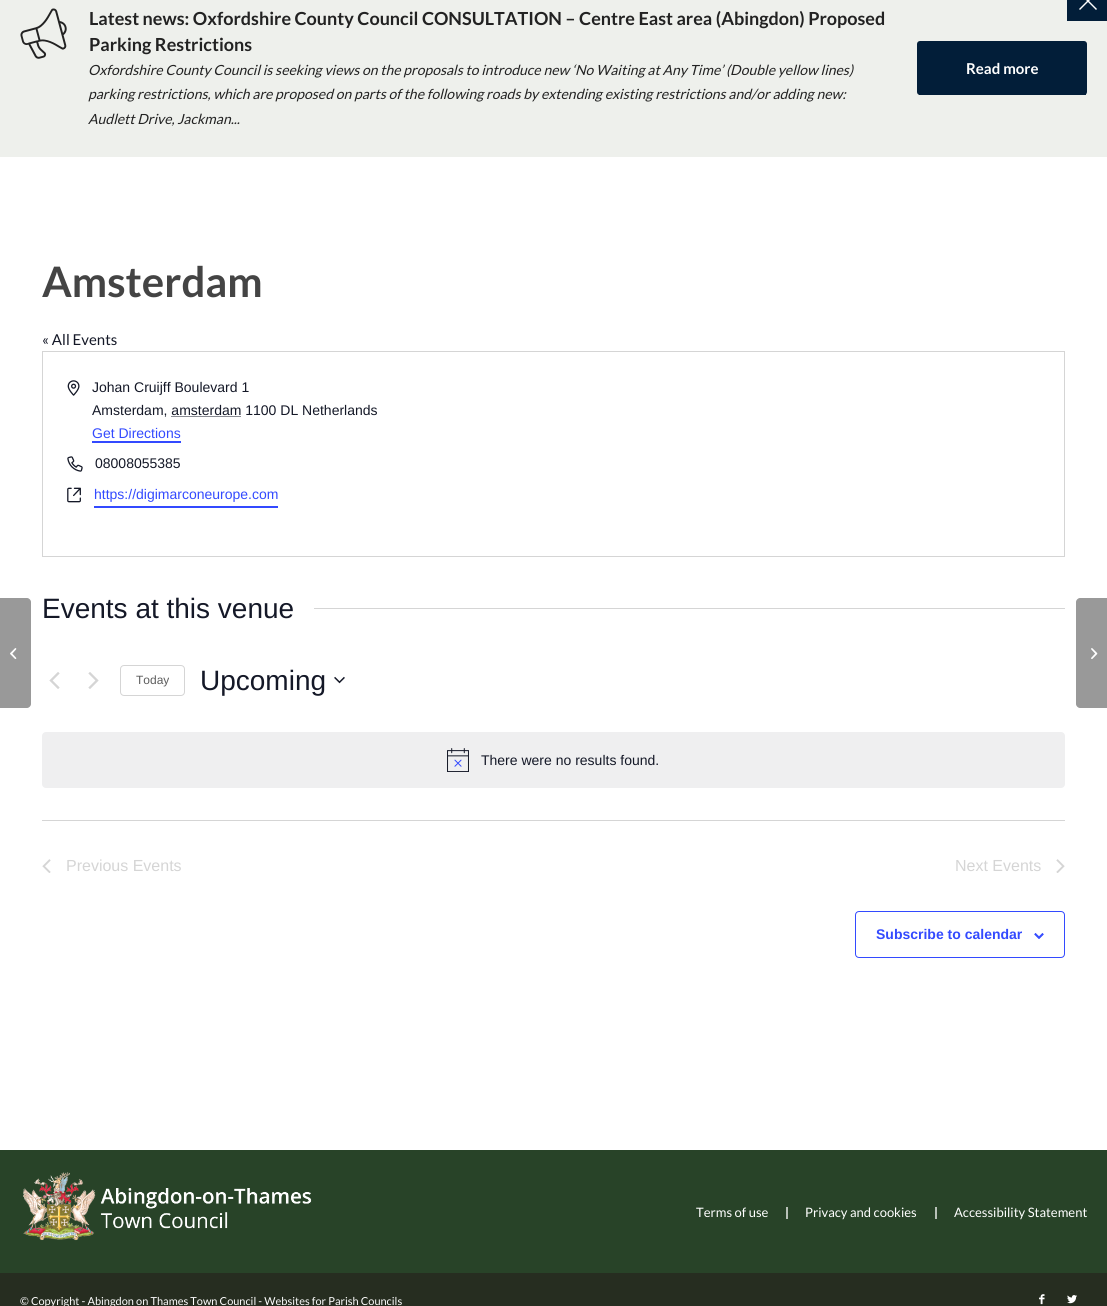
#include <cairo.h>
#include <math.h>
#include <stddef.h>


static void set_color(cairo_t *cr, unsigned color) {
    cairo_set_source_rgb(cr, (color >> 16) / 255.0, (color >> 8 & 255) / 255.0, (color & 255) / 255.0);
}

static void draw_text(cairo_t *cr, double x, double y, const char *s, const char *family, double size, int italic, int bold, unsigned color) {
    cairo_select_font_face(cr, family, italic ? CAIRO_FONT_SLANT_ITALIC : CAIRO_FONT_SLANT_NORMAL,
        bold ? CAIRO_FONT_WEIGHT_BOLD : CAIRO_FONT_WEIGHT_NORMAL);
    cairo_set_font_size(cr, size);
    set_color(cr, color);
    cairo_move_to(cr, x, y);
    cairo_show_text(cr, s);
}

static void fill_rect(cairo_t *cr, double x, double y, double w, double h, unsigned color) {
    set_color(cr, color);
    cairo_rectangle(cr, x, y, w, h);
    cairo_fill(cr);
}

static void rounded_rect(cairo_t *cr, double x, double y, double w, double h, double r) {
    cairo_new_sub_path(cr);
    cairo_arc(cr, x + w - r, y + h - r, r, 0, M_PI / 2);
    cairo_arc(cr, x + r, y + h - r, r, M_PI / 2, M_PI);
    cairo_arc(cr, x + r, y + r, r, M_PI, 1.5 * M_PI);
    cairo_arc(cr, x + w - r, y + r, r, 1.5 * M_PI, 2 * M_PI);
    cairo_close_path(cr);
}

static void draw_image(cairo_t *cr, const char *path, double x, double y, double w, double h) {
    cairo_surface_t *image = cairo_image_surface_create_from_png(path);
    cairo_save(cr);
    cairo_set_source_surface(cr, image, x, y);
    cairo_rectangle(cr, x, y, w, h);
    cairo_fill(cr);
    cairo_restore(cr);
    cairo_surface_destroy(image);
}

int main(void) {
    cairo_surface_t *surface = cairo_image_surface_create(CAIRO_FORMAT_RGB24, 1107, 1306);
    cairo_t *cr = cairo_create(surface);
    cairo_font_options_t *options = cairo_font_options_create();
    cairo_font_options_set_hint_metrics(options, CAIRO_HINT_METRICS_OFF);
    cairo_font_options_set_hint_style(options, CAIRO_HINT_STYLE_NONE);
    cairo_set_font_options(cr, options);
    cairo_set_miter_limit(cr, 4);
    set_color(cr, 0xFFFFFF);
    cairo_paint(cr);
    set_color(cr, 0x999999);
    cairo_new_path(cr);
    cairo_move_to(cr, 0, 598);
    cairo_line_to(cr, 27, 598);
    cairo_curve_to(cr, 29, 598, 31, 600, 31, 602);
    cairo_line_to(cr, 31, 704);
    cairo_curve_to(cr, 31, 706, 29, 708, 27, 708);
    cairo_line_to(cr, 0, 708);
    cairo_close_path(cr);
    cairo_fill(cr);
    draw_image(cr, "assets/img1.png", 10, 648, 7, 11);
    fill_rect(cr, 0, 0, 1107, 157, 0xEEF0EC);
    draw_image(cr, "assets/img2.png", 20, 8, 47, 51);
    draw_text(cr, 89, 25, "Latest news: Oxfordshire County Council CONSULTATION – Centre East area (Abingdon) Proposed", "Lato", 18, 0, 1, 0x222222);
    draw_text(cr, 89, 51, "Parking Restrictions", "Lato", 18, 0, 1, 0x222222);
    draw_text(cr, 88, 75, "Oxfordshire County Council is seeking views on the proposals to introduce new ‘No Waiting at Any Time’ (Double yellow lines)", "Lato", 14, 1, 0, 0x222222);
    draw_text(cr, 88, 99, "parking restrictions, which are proposed on parts of the following roads by extending existing restrictions and/or adding new:", "Lato", 14, 1, 0, 0x222222);
    draw_text(cr, 88, 124, "Audlett Drive, Jackman...", "Lato", 14, 1, 0, 0x222222);
    set_color(cr, 0x021E39);
    rounded_rect(cr, 917, 41, 170, 54, 3);
    cairo_fill(cr);
    fill_rect(cr, 919, 94, 167, 1, 0x021E39);
    draw_text(cr, 966, 74, "Read more", "Lato", 15, 0, 1, 0xFFFFFF);
    fill_rect(cr, 1067, 0, 40, 21, 0x021E39);
    set_color(cr, 0xFFFFFF);
    cairo_new_path(cr);
    cairo_move_to(cr, 1096, -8);
    cairo_line_to(cr, 1097, -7);
    cairo_line_to(cr, 1080, 10);
    cairo_line_to(cr, 1079, 9);
    cairo_close_path(cr);
    cairo_fill(cr);
    cairo_new_path(cr);
    cairo_move_to(cr, 1097, 9);
    cairo_line_to(cr, 1096, 10);
    cairo_line_to(cr, 1079, -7);
    cairo_line_to(cr, 1080, -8);
    cairo_close_path(cr);
    cairo_fill(cr);
    draw_text(cr, 42, 297, "Amsterdam", "Lato", 42, 0, 1, 0x444444);
    draw_text(cr, 42, 345, "« All Events", "Lato", 15, 0, 0, 0x141827);
    cairo_rectangle(cr, 42.5, 351.5, 1022, 205);
    set_color(cr, 0xD5D5D5);
    cairo_set_line_width(cr, 1);
    cairo_stroke(cr);
    draw_image(cr, "assets/img3.png", 67, 380, 13, 16);
    draw_text(cr, 92, 392, "Johan Cruijff Boulevard 1", "Liberation Sans", 14, 0, 0, 0x141827);
    draw_text(cr, 92, 415, "Amsterdam, amsterdam 1100 DL Netherlands", "Liberation Sans", 14, 0, 0, 0x141827);
    cairo_new_path(cr);
    cairo_move_to(cr, 171.5, 416.5);
    cairo_line_to(cr, 241.5, 416.5);
    cairo_set_dash(cr, (double[]){1, 1}, 2, 0);
    cairo_stroke(cr);
    draw_text(cr, 92, 438, "Get Directions", "Liberation Sans", 14, 0, 0, 0x334AFF);
    fill_rect(cr, 92, 441, 89, 2, 0x334AFF);
    draw_image(cr, "assets/img4.png", 67, 456, 16, 16);
    draw_text(cr, 95, 468, "08008055385", "Liberation Sans", 14, 0, 0, 0x141827);
    draw_image(cr, "assets/img5.png", 67, 487, 14, 16);
    fill_rect(cr, 94, 506, 184, 2, 0x334AFF);
    draw_text(cr, 94, 499, "https://digimarconeurope.com", "Liberation Sans", 14, 0, 0, 0x334AFF);
    draw_text(cr, 42, 618, "Events at this venue", "Liberation Sans", 28, 0, 0, 0x141827);
    fill_rect(cr, 314, 608, 751, 1, 0xD5D5D5);
    draw_image(cr, "assets/img6.png", 49, 672, 11, 17);
    draw_image(cr, "assets/img7.png", 88, 672, 11, 17);
    rounded_rect(cr, 120.5, 665.5, 64, 30, 3.5);
    cairo_set_dash(cr, NULL, 0, 0);
    cairo_stroke(cr);
    draw_text(cr, 136, 684, "Today", "Liberation Sans", 12, 0, 0, 0x5D5D5D);
    draw_text(cr, 200, 690, "Upcoming", "Liberation Sans", 28, 0, 0, 0x141827);
    draw_image(cr, "assets/img8.png", 334, 676, 11, 8);
    set_color(cr, 0xEFEFF0);
    rounded_rect(cr, 42, 732, 1023, 56, 4);
    cairo_fill(cr);
    draw_image(cr, "assets/img9.png", 447, 748, 22, 24);
    draw_text(cr, 481, 765, "There were no results found.", "Liberation Sans", 14, 0, 0, 0x141827);
    fill_rect(cr, 42, 820, 1023, 1, 0xD5D5D5);
    draw_image(cr, "assets/img10.png", 42, 859, 9, 14);
    draw_text(cr, 66, 871, "Previous Events", "Liberation Sans", 16, 0, 0, 0xD5D5D5);
    draw_text(cr, 955, 871, "Next Events", "Liberation Sans", 16, 0, 0, 0xD5D5D5);
    draw_image(cr, "assets/img11.png", 1056, 859, 9, 14);
    rounded_rect(cr, 855.5, 911.5, 209, 46, 3.5);
    set_color(cr, 0x334AFF);
    cairo_stroke(cr);
    draw_text(cr, 876, 939, "Subscribe to calendar", "Liberation Sans", 14, 0, 1, 0x334AFF);
    draw_image(cr, "assets/img12.png", 1034, 933, 10, 6);
    fill_rect(cr, 0, 1150, 1107, 123, 0x284328);
    draw_image(cr, "assets/img13.png", 23, 1172, 289, 69);
    draw_text(cr, 696, 1217, "Terms of use", "Lato", 13, 0, 0, 0xFFFFFF);
    fill_rect(cr, 786, 1207, 2, 12, 0xB8C1B8);
    draw_text(cr, 805, 1217, "Privacy and cookies", "Lato", 13, 0, 0, 0xFFFFFF);
    fill_rect(cr, 935, 1207, 2, 12, 0xB8C1B8);
    draw_text(cr, 954, 1217, "Accessibility Statement", "Lato", 13, 0, 0, 0xFFFFFF);
    fill_rect(cr, 0, 1273, 1107, 33, 0x262D20);
    draw_text(cr, 20, 1305, "© Copyright - Abingdon on Thames Town Council - Websites for Parish Councils", "Lato", 11, 0, 0, 0xFFFFFF);
    draw_image(cr, "assets/img14.png", 1039, 1294, 6, 11);
    draw_image(cr, "assets/img15.png", 1067, 1295, 10, 9);
    set_color(cr, 0x999999);
    cairo_new_path(cr);
    cairo_move_to(cr, 1080, 598);
    cairo_line_to(cr, 1107, 598);
    cairo_line_to(cr, 1107, 708);
    cairo_line_to(cr, 1080, 708);
    cairo_curve_to(cr, 1078, 708, 1076, 706, 1076, 704);
    cairo_line_to(cr, 1076, 602);
    cairo_curve_to(cr, 1076, 600, 1078, 598, 1080, 598);
    cairo_close_path(cr);
    cairo_fill(cr);
    draw_image(cr, "assets/img16.png", 1091, 648, 7, 11);
    cairo_surface_write_to_png(surface, "output.png");
    cairo_font_options_destroy(options);
    cairo_destroy(cr);
    cairo_surface_destroy(surface);
    return 0;
}
